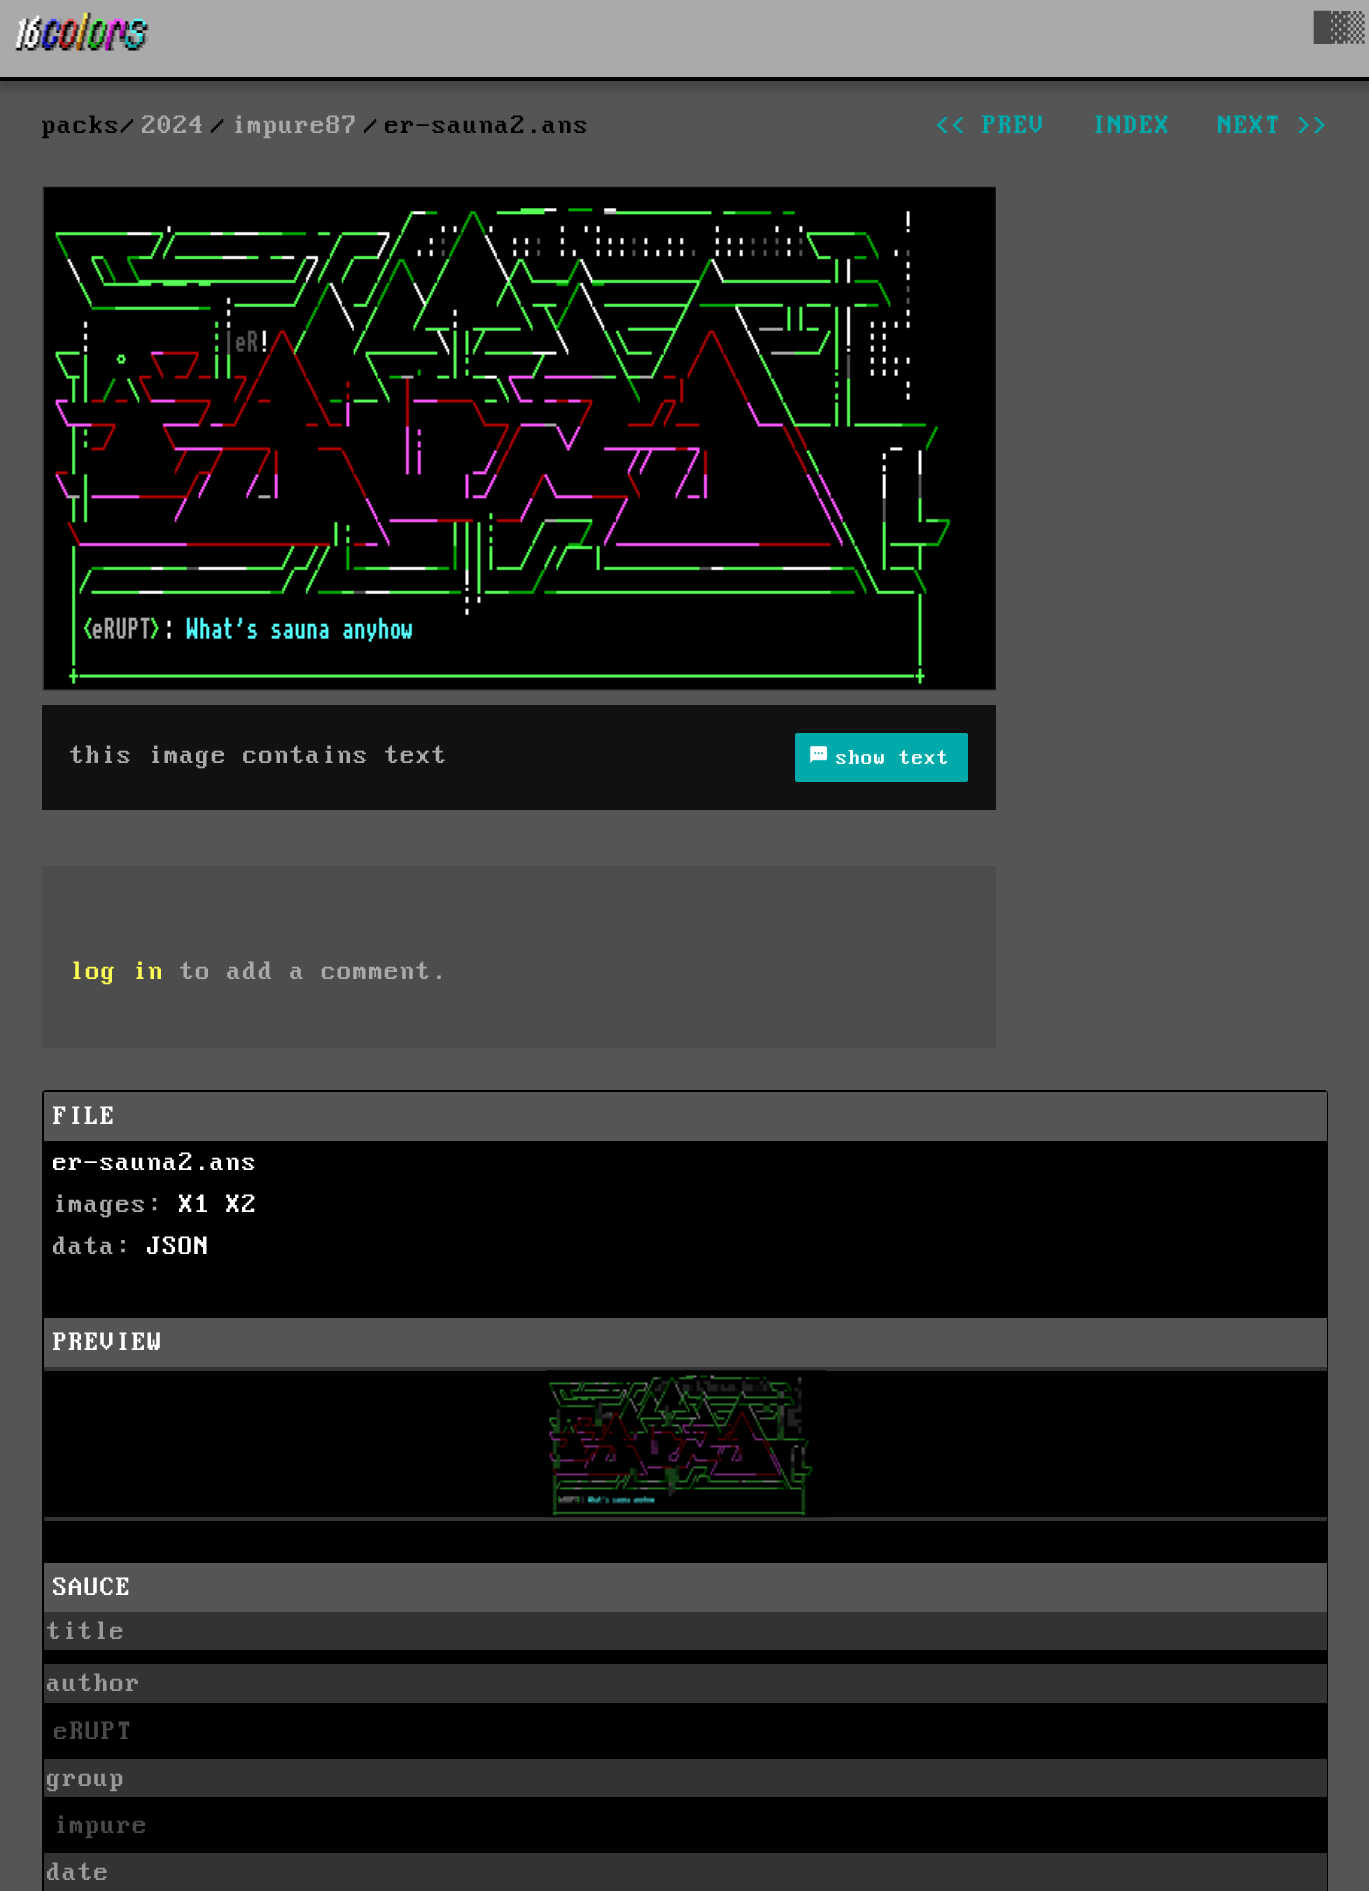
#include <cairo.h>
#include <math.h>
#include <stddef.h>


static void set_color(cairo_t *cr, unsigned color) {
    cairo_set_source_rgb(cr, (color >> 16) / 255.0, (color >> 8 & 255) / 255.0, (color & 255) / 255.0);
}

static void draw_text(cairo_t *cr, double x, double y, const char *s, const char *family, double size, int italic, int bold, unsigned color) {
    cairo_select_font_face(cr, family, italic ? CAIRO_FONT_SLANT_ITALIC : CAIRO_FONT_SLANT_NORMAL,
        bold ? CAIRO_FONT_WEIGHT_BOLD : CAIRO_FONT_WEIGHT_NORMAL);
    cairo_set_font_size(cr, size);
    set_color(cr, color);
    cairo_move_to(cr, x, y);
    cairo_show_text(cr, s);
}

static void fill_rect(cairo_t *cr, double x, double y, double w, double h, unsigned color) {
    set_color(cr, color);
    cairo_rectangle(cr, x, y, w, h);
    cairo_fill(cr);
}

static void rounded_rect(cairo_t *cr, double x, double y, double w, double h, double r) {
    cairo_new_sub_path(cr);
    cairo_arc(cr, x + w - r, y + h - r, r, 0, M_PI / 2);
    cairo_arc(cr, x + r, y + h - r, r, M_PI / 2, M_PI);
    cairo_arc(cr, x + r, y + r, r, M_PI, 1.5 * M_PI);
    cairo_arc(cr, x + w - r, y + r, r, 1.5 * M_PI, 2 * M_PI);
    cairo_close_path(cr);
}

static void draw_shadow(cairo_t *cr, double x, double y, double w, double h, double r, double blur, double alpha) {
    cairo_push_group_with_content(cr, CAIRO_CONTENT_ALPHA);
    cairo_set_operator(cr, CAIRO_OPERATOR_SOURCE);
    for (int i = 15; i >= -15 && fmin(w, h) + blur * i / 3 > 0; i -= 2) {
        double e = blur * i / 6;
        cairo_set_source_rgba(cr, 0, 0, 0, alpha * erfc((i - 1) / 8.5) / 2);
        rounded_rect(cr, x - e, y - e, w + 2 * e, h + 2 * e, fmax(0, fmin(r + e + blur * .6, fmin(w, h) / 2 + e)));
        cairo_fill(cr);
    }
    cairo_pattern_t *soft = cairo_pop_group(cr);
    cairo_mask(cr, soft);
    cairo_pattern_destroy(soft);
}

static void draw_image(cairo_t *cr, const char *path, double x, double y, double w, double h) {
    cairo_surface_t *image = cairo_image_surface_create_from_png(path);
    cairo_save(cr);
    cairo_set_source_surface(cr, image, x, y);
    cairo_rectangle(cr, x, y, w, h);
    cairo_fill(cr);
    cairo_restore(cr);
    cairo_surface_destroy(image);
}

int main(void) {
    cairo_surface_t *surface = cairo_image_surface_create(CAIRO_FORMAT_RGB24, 1369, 1891);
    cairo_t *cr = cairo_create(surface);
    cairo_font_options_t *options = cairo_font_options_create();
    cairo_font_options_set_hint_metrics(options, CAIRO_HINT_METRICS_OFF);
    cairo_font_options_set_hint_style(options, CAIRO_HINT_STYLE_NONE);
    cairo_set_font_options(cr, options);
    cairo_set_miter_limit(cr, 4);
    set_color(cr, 0x555555);
    cairo_paint(cr);
    set_color(cr, 0x222222);
    draw_shadow(cr, 0, 9, 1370, 80, 0, 4.5, 0.35);
    fill_rect(cr, 0, 0, 1369, 77, 0xAAAAAA);
    fill_rect(cr, 0, 77, 1369, 4, 0x000000);
    draw_image(cr, "assets/img1.png", 15, 12, 134, 39);
    draw_text(cr, 1314, 37, "█▓▒", "DejaVu Sans Mono", 28, 0, 0, 0x4A4A4A);
    draw_text(cr, 42, 133, "packs/", "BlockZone", 28, 0, 0, 0x000000);
    draw_text(cr, 142, 133, "2024", "BlockZone", 28, 0, 0, 0xAAAAAA);
    draw_text(cr, 211, 133, "/", "BlockZone", 28, 0, 0, 0x000000);
    draw_text(cr, 232, 133, "impure87", "BlockZone", 28, 0, 0, 0xAAAAAA);
    draw_text(cr, 364, 133, "/", "BlockZone", 28, 0, 0, 0x000000);
    draw_text(cr, 385, 133, "er-sauna2.ans", "BlockZone", 28, 0, 0, 0x000000);
    draw_text(cr, 935, 133, "<< PREV", "BlockZone", 28, 0, 0, 0x00AAAA);
    draw_text(cr, 1092, 133, "INDEX", "BlockZone", 28, 0, 0, 0x00AAAA);
    draw_text(cr, 1218, 133, "NEXT >>", "BlockZone", 28, 0, 0, 0x00AAAA);
    cairo_save(cr);
    cairo_rectangle(cr, 42, 186, 954, 505);
    cairo_clip(cr);
    cairo_rectangle(cr, 43, 187, 955, 503);
    set_color(cr, 0x444444);
    cairo_stroke(cr);
    cairo_restore(cr);
    draw_image(cr, "assets/img2.png", 43, 187, 953, 503);
    fill_rect(cr, 42, 705, 954, 105, 0x111111);
    draw_text(cr, 70, 763, "this image contains text", "BlockZone", 28, 0, 0, 0xAAAAAA);
    set_color(cr, 0x00AAAA);
    rounded_rect(cr, 795, 733, 173, 49, 2);
    cairo_fill(cr);
    draw_image(cr, "assets/img3.png", 810, 746, 18, 17);
    draw_text(cr, 836, 764, "show text", "BlockZone", 22.5, 0, 0, 0xFFFFFF);
    fill_rect(cr, 42, 866, 954, 182, 0x4D4D4D);
    draw_text(cr, 70, 979, "log in", "BlockZone", 28, 0, 0, 0xFFFF55);
    draw_text(cr, 180, 979, "to add a comment.", "BlockZone", 28, 0, 0, 0xAAAAAA);
    set_color(cr, 0x000000);
    rounded_rect(cr, 43, 1091, 1284, 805, 3);
    cairo_fill_preserve(cr);
    cairo_stroke(cr);
    fill_rect(cr, 44, 1092, 1283, 49, 0x555555);
    draw_text(cr, 53, 1124, "FILE", "BlockZone", 28, 0, 0, 0xFFFFFF);
    draw_text(cr, 53, 1170, "er-sauna2.ans", "BlockZone", 28, 0, 0, 0xFFFFFF);
    draw_text(cr, 53, 1212, "images:", "BlockZone", 28, 0, 0, 0xAAAAAA);
    draw_text(cr, 179, 1212, "X1 X2", "BlockZone", 28, 0, 0, 0xFFFFFF);
    draw_text(cr, 53, 1254, "data:", "BlockZone", 28, 0, 0, 0xAAAAAA);
    draw_text(cr, 147, 1254, "JSON", "BlockZone", 28, 0, 0, 0xFFFFFF);
    fill_rect(cr, 44, 1318, 1283, 49, 0x555555);
    draw_text(cr, 53, 1350, "PREVIEW", "BlockZone", 28, 0, 0, 0xFFFFFF);
    fill_rect(cr, 44, 1367, 1283, 4, 0x333333);
    fill_rect(cr, 44, 1517, 1283, 4, 0x333333);
    draw_image(cr, "assets/img4.png", 546, 1370, 280, 148);
    fill_rect(cr, 44, 1563, 1283, 49, 0x555555);
    draw_text(cr, 53, 1595, "SAUCE", "BlockZone", 28, 0, 0, 0xFFFFFF);
    fill_rect(cr, 44, 1612, 1283, 38, 0x333333);
    draw_text(cr, 47, 1639, "title", "BlockZone", 28, 0, 0, 0x999999);
    fill_rect(cr, 44, 1664, 1283, 39, 0x333333);
    draw_text(cr, 47, 1691, "author", "BlockZone", 28, 0, 0, 0x999999);
    draw_text(cr, 54, 1739, "eRUPT", "BlockZone", 28, 0, 0, 0x4A4A4A);
    fill_rect(cr, 44, 1759, 1283, 38, 0x333333);
    draw_text(cr, 47, 1786, "group", "BlockZone", 28, 0, 0, 0x999999);
    draw_text(cr, 54, 1833, "impure", "BlockZone", 28, 0, 0, 0x4A4A4A);
    fill_rect(cr, 44, 1853, 1283, 38, 0x333333);
    draw_text(cr, 47, 1880, "date", "BlockZone", 28, 0, 0, 0x999999);
    cairo_surface_write_to_png(surface, "output.png");
    cairo_font_options_destroy(options);
    cairo_destroy(cr);
    cairo_surface_destroy(surface);
    return 0;
}
